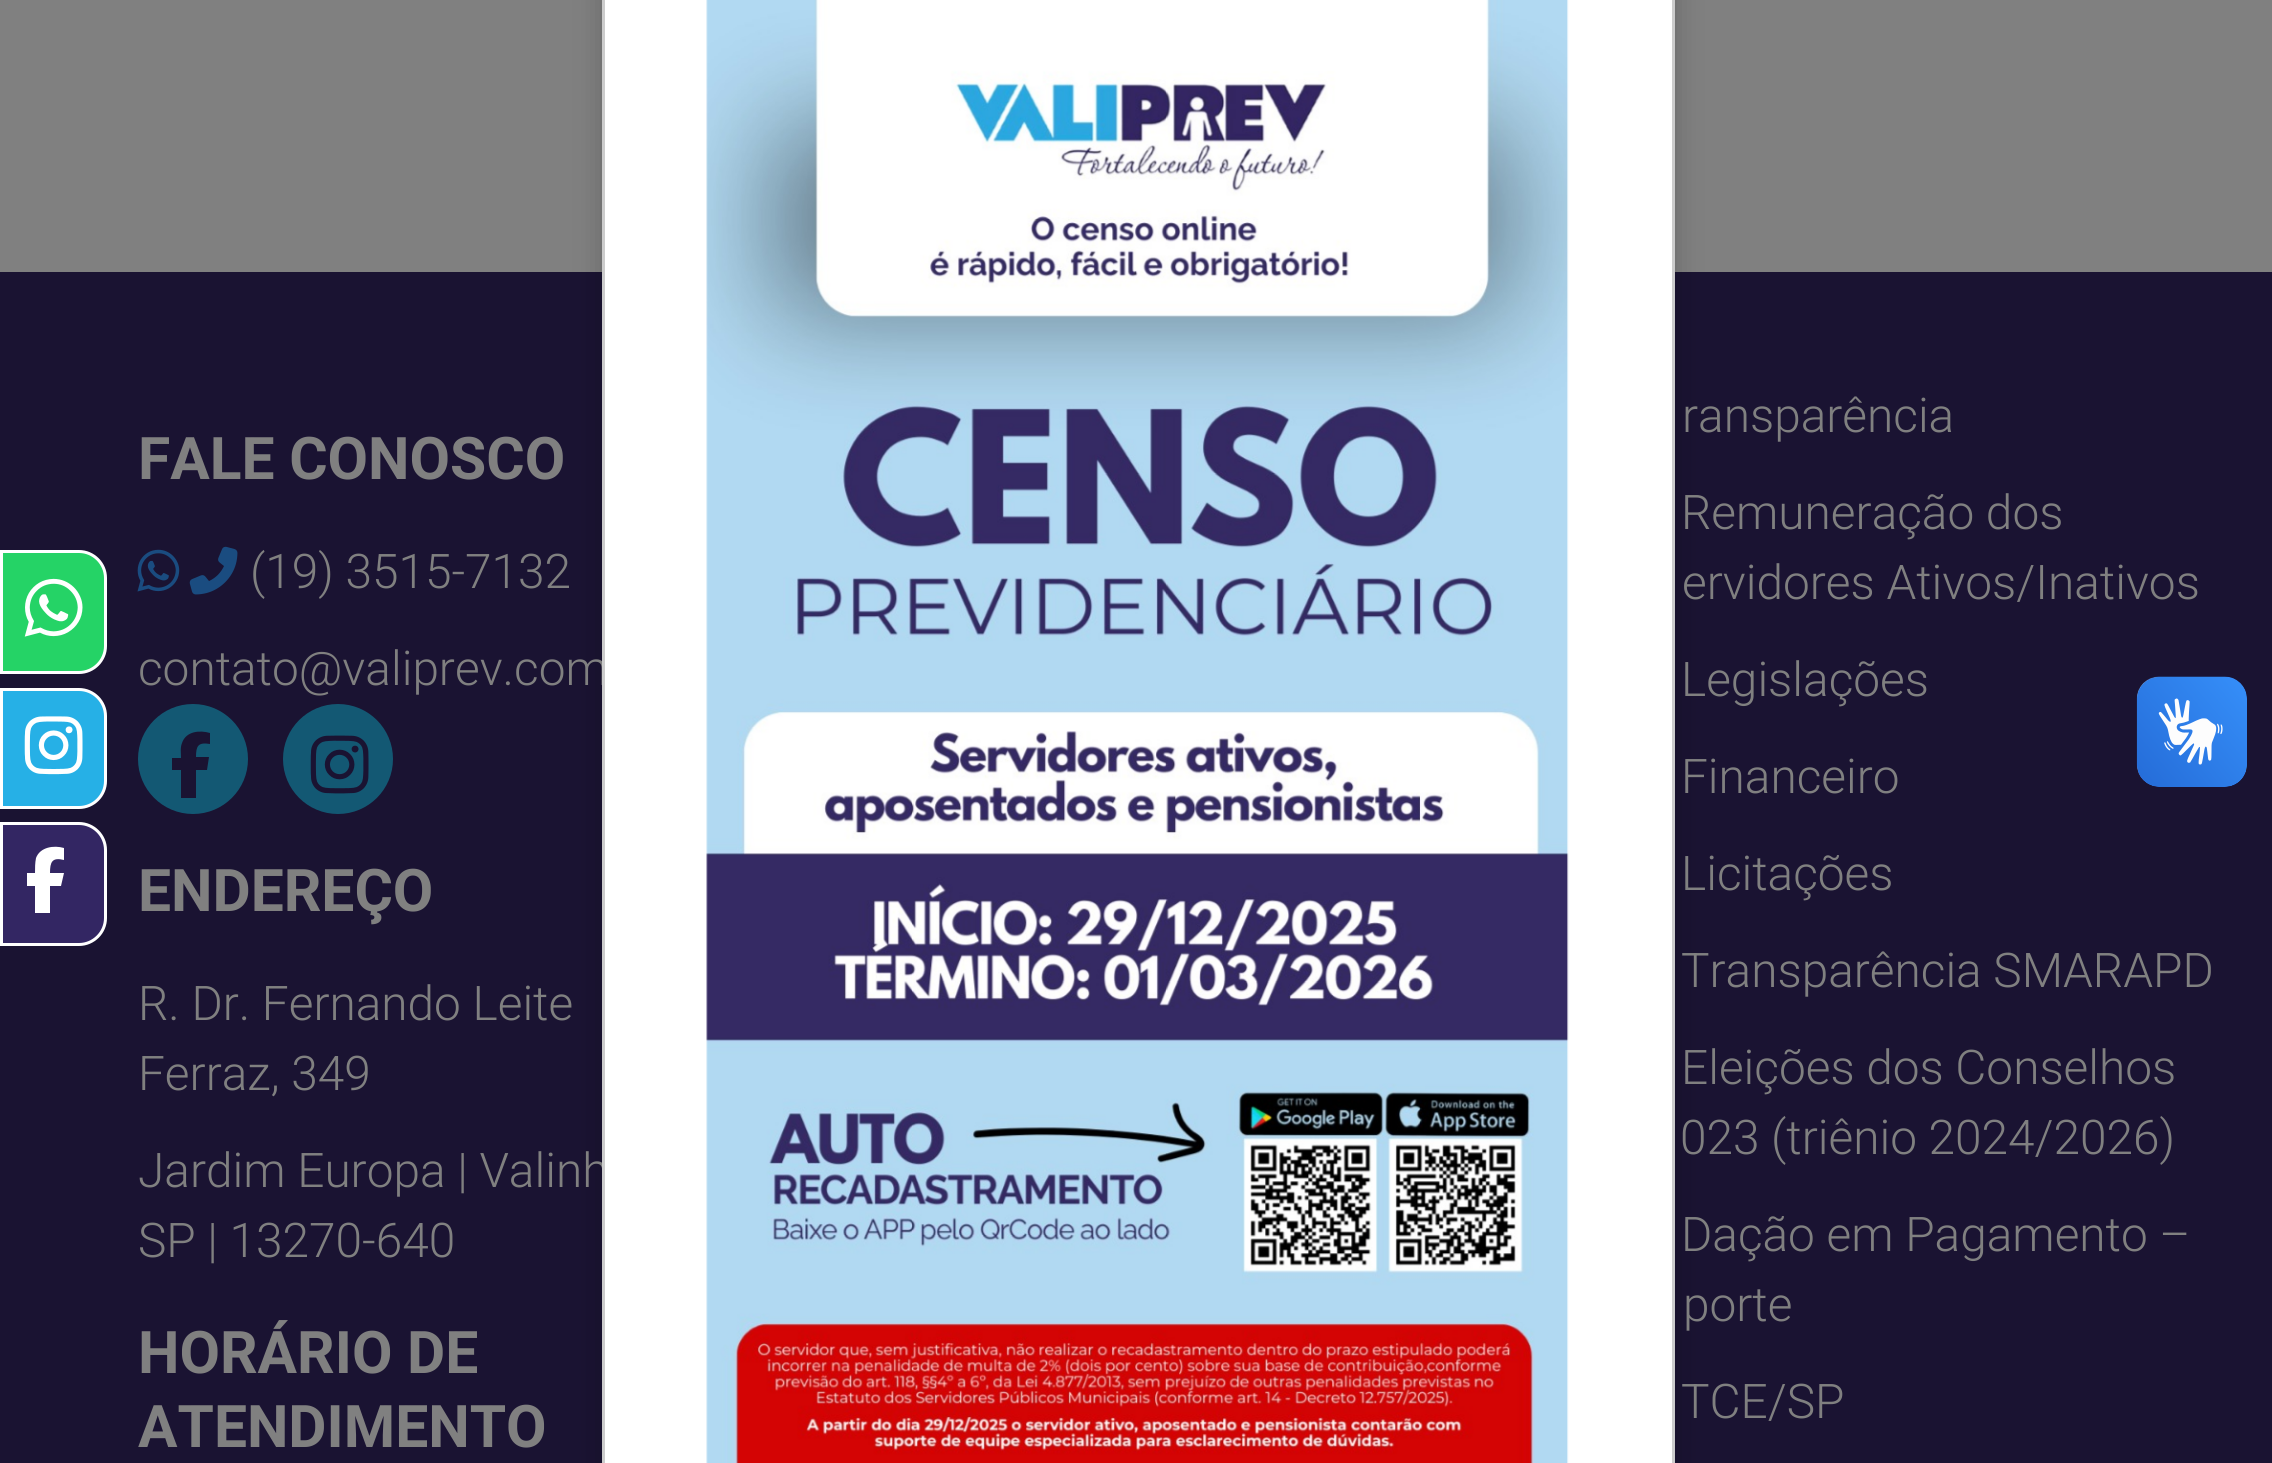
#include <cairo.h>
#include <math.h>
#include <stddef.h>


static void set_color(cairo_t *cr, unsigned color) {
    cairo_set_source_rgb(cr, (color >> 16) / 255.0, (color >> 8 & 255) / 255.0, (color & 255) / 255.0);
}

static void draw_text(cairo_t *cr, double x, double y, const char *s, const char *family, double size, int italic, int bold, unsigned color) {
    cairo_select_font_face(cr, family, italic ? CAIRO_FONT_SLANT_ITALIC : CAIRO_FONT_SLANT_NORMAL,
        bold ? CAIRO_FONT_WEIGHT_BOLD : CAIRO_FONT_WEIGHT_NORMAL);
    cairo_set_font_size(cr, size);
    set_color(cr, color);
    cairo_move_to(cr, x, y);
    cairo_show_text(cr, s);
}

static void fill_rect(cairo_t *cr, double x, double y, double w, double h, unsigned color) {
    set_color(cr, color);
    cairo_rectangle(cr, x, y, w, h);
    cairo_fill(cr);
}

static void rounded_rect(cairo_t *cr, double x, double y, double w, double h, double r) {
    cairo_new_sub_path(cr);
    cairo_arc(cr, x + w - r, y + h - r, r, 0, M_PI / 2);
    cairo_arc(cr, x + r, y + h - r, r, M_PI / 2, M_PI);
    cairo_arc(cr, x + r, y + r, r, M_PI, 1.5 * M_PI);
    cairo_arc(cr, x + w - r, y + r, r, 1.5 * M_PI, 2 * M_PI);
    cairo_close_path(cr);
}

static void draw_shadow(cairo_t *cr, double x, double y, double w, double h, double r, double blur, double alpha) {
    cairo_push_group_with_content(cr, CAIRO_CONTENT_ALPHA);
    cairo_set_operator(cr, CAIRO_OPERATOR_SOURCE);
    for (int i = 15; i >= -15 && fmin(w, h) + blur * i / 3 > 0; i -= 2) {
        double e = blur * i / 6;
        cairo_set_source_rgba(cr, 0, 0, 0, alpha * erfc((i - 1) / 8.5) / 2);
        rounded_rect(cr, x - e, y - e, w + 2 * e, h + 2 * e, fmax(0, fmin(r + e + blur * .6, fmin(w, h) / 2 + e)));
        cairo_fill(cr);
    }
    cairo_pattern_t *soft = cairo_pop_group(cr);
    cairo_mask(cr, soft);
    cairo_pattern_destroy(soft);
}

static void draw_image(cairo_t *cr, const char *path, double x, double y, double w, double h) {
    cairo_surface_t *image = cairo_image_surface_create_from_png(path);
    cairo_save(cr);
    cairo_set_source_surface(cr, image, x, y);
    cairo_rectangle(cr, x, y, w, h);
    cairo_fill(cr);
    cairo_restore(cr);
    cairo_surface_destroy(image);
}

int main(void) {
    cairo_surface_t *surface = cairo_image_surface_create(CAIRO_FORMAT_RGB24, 2272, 1463);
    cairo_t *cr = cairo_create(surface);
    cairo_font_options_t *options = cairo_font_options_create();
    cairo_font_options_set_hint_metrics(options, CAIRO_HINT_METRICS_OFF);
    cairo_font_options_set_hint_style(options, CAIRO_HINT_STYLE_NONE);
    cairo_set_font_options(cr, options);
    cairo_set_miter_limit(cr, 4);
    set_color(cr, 0x808080);
    cairo_paint(cr);
    fill_rect(cr, 0, 272, 2272, 1191, 0x1A1332);
    set_color(cr, 0x000000);
    draw_shadow(cr, 602, -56, 1073, 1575, 14, 14, 0.2);
    draw_text(cr, 138, 685, "contato@valiprev.com", "Roboto Light", 47.75, 0, 0, 0x808080);
    draw_text(cr, 138, 1187, "Jardim Europa | Valinh", "Roboto Light", 47.75, 0, 0, 0x808080);
    set_color(cr, 0xFFFFFF);
    cairo_rectangle(cr, 603.5, -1.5, 1070, 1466);
    cairo_fill_preserve(cr);
    set_color(cr, 0xCCCCCC);
    cairo_set_line_width(cr, 3);
    cairo_stroke(cr);
    draw_image(cr, "assets/img1.png", 706, 0, 863, 1463);
    set_color(cr, 0x25D366);
    cairo_new_path(cr);
    cairo_move_to(cr, 1.5, 551.5);
    cairo_line_to(cr, 79, 551.5);
    cairo_curve_to(cr, 93.5, 551.5, 105.5, 563.5, 105.5, 578);
    cairo_line_to(cr, 105.5, 646);
    cairo_curve_to(cr, 105.5, 660.5, 93.5, 672.5, 79, 672.5);
    cairo_line_to(cr, 1.5, 672.5);
    cairo_close_path(cr);
    cairo_fill_preserve(cr);
    set_color(cr, 0xFFFFFF);
    cairo_stroke(cr);
    draw_image(cr, "assets/img2.png", 24, 578, 59, 59);
    set_color(cr, 0x26B0E6);
    cairo_new_path(cr);
    cairo_move_to(cr, 1.5, 689.5);
    cairo_line_to(cr, 79, 689.5);
    cairo_curve_to(cr, 93.5, 689.5, 105.5, 701.5, 105.5, 716);
    cairo_line_to(cr, 105.5, 781);
    cairo_curve_to(cr, 105.5, 795.5, 93.5, 807.5, 79, 807.5);
    cairo_line_to(cr, 1.5, 807.5);
    cairo_close_path(cr);
    cairo_fill_preserve(cr);
    set_color(cr, 0xFFFFFF);
    cairo_stroke(cr);
    draw_image(cr, "assets/img3.png", 24, 716, 59, 59);
    set_color(cr, 0x332663);
    cairo_new_path(cr);
    cairo_move_to(cr, 1.5, 823.5);
    cairo_line_to(cr, 79, 823.5);
    cairo_curve_to(cr, 93.5, 823.5, 105.5, 835.5, 105.5, 850);
    cairo_line_to(cr, 105.5, 918);
    cairo_curve_to(cr, 105.5, 932.5, 93.5, 944.5, 79, 944.5);
    cairo_line_to(cr, 1.5, 944.5);
    cairo_close_path(cr);
    cairo_fill_preserve(cr);
    set_color(cr, 0xFFFFFF);
    cairo_stroke(cr);
    cairo_new_path(cr);
    cairo_move_to(cr, 35, 886);
    cairo_line_to(cr, 35, 913);
    cairo_line_to(cr, 35, 886);
    cairo_line_to(cr, 35, 913);
    cairo_line_to(cr, 50, 913);
    cairo_line_to(cr, 50, 886);
    cairo_line_to(cr, 61, 886);
    cairo_line_to(cr, 64, 873);
    cairo_line_to(cr, 50, 873);
    cairo_curve_to(cr, 50, 862, 52, 857, 64, 860);
    cairo_line_to(cr, 64, 848);
    cairo_curve_to(cr, 54, 845, 40, 847, 36, 858);
    cairo_curve_to(cr, 35, 863, 35, 868, 35, 873);
    cairo_line_to(cr, 27, 873);
    cairo_line_to(cr, 27, 886);
    cairo_close_path(cr);
    cairo_fill(cr);
    draw_text(cr, 138, 479, "FALE CONOSCO", "Roboto", 58.75, 0, 1, 0x808080);
    draw_image(cr, "assets/img4.png", 137, 549, 43, 43);
    draw_image(cr, "assets/img5.png", 189, 546, 49, 49);
    draw_text(cr, 250, 588, "(19) 3515-7132", "Roboto Light", 47.75, 0, 0, 0x808080);
    set_color(cr, 0x135873);
    cairo_new_path(cr);
    cairo_arc(cr, 193, 759, 55, 0, 2 * M_PI);
    cairo_fill(cr);
    set_color(cr, 0x1A1332);
    cairo_new_path(cr);
    cairo_move_to(cr, 181, 770);
    cairo_line_to(cr, 181, 798);
    cairo_line_to(cr, 181, 770);
    cairo_line_to(cr, 181, 798);
    cairo_line_to(cr, 196, 798);
    cairo_line_to(cr, 196, 770);
    cairo_line_to(cr, 207, 770);
    cairo_line_to(cr, 209, 757);
    cairo_line_to(cr, 196, 757);
    cairo_curve_to(cr, 196, 746, 198, 742, 210, 744);
    cairo_line_to(cr, 210, 733);
    cairo_curve_to(cr, 200, 730, 186, 731, 182, 743);
    cairo_curve_to(cr, 180, 748, 181, 753, 181, 758);
    cairo_line_to(cr, 172, 758);
    cairo_line_to(cr, 172, 770);
    cairo_close_path(cr);
    cairo_fill(cr);
    set_color(cr, 0x135873);
    cairo_arc(cr, 338, 759, 55, 0, 2 * M_PI);
    cairo_fill(cr);
    draw_image(cr, "assets/img6.png", 310, 735, 59, 59);
    draw_text(cr, 138, 911, "ENDEREÇO", "Roboto", 58.75, 0, 1, 0x808080);
    draw_text(cr, 138, 1020, "R. Dr. Fernando Leite", "Roboto Light", 47.75, 0, 0, 0x808080);
    draw_text(cr, 138, 1090, "Ferraz, 349", "Roboto Light", 47.75, 0, 0, 0x808080);
    draw_text(cr, 138, 1257, "SP | 13270-640", "Roboto Light", 47.75, 0, 0, 0x808080);
    draw_text(cr, 138, 1373, "HORÁRIO DE", "Roboto", 58.75, 0, 1, 0x808080);
    draw_text(cr, 138, 1447, "ATENDIMENTO", "Roboto", 58.75, 0, 1, 0x808080);
    draw_text(cr, 1682, 432, "ransparência", "Roboto Light", 47.75, 0, 0, 0x808080);
    draw_text(cr, 1681, 529, "Remuneração dos", "Roboto Light", 47.75, 0, 0, 0x808080);
    draw_text(cr, 1682, 599, "ervidores Ativos/Inativos", "Roboto Light", 47.75, 0, 0, 0x808080);
    draw_text(cr, 1681, 696, "Legislações", "Roboto Light", 47.75, 0, 0, 0x808080);
    draw_text(cr, 1681, 793, "Financeiro", "Roboto Light", 47.75, 0, 0, 0x808080);
    draw_text(cr, 1681, 890, "Licitações", "Roboto Light", 47.75, 0, 0, 0x808080);
    draw_text(cr, 1681, 987, "Transparência SMARAPD", "Roboto Light", 47.75, 0, 0, 0x808080);
    draw_text(cr, 1681, 1084, "Eleições dos Conselhos", "Roboto Light", 47.75, 0, 0, 0x808080);
    draw_text(cr, 1680, 1154, "023 (triênio 2024/2026)", "Roboto Light", 47.75, 0, 0, 0x808080);
    draw_text(cr, 1681, 1251, "Dação em Pagamento –", "Roboto Light", 47.75, 0, 0, 0x808080);
    draw_text(cr, 1683, 1321, "porte", "Roboto Light", 47.75, 0, 0, 0x808080);
    draw_text(cr, 1681, 1418, "TCE/SP", "Roboto Light", 47.75, 0, 0, 0x808080);
    draw_image(cr, "assets/img7.png", 2136, 676, 111, 111);
    draw_image(cr, "assets/img8.png", 2137, 677, 110, 110);
    cairo_surface_write_to_png(surface, "output.png");
    cairo_font_options_destroy(options);
    cairo_destroy(cr);
    cairo_surface_destroy(surface);
    return 0;
}
